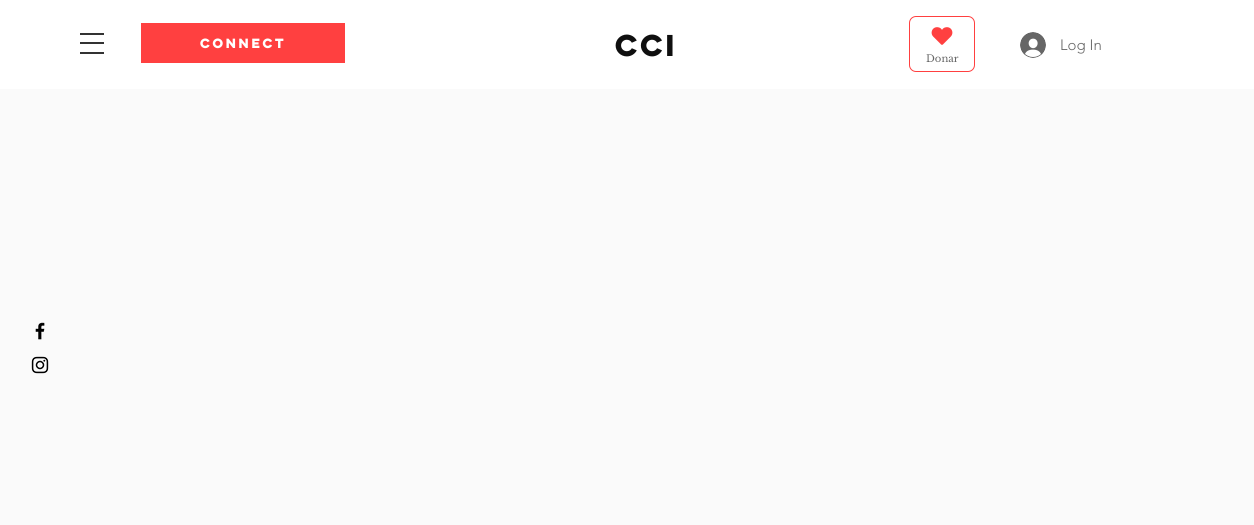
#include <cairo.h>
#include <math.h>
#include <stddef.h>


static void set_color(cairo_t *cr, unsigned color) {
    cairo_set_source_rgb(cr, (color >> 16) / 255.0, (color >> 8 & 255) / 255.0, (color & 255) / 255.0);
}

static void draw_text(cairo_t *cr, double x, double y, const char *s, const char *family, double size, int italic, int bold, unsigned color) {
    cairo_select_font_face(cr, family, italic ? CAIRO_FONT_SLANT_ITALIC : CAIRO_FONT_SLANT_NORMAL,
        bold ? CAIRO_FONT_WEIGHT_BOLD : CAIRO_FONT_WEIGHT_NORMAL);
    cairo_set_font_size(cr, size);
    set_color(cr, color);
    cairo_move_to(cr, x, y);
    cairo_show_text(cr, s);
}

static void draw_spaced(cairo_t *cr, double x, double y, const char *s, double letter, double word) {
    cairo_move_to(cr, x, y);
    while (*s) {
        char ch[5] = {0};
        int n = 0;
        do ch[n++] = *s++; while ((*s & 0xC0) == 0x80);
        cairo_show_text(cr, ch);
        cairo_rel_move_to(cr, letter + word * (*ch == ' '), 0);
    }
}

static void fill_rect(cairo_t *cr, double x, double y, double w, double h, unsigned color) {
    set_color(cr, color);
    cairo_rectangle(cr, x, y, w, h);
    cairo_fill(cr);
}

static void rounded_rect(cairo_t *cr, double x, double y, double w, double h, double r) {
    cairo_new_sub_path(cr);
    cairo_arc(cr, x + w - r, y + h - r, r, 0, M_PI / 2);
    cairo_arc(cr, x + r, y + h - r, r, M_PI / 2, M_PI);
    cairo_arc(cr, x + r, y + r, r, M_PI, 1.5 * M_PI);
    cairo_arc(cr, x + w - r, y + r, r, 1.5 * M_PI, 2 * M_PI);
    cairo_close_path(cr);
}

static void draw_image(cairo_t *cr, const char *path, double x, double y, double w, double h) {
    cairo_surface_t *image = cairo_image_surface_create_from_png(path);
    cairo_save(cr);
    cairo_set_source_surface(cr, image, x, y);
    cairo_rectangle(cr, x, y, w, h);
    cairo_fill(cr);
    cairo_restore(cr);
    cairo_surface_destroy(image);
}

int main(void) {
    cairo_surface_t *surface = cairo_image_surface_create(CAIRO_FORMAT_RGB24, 1254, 525);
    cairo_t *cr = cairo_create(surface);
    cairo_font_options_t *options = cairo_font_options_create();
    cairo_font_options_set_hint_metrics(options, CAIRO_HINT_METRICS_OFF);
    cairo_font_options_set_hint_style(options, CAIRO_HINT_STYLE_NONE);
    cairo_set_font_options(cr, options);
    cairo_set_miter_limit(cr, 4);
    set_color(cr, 0xFAFAFA);
    cairo_paint(cr);
    fill_rect(cr, 0, 0, 1254, 89, 0xFFFFFF);
    fill_rect(cr, 80, 33, 24, 2, 0x323232);
    fill_rect(cr, 80, 42, 24, 2, 0x323232);
    fill_rect(cr, 80, 52, 24, 2, 0x323232);
    fill_rect(cr, 141, 23, 204, 40, 0xFF4040);
    draw_text(cr, 200, 48, "CONNECT", "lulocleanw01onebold", 12, 0, 1, 0xFFFFFE);
    cairo_set_font_size(cr, 27);
    set_color(cr, 0x0F0F0F);
    draw_spaced(cr, 615, 56, "cci", -3, 0);
    draw_image(cr, "assets/img1.png", 1020, 32, 26, 26);
    draw_text(cr, 1060, 50, "Log In", "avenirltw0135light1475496 Light", 15, 0, 0, 0x666666);
    rounded_rect(cr, 909.5, 16.5, 65, 55, 6.5);
    set_color(cr, 0xFF4040);
    cairo_set_line_width(cr, 1);
    cairo_stroke(cr);
    draw_image(cr, "assets/img2.png", 931, 27, 22, 18);
    draw_text(cr, 926, 62, "Donar", "Libre Baskerville", 10, 0, 0, 0x666666);
    draw_image(cr, "assets/img3.png", 35, 322, 10, 18);
    draw_image(cr, "assets/img4.png", 31, 356, 18, 18);
    cairo_surface_write_to_png(surface, "output.png");
    cairo_font_options_destroy(options);
    cairo_destroy(cr);
    cairo_surface_destroy(surface);
    return 0;
}
